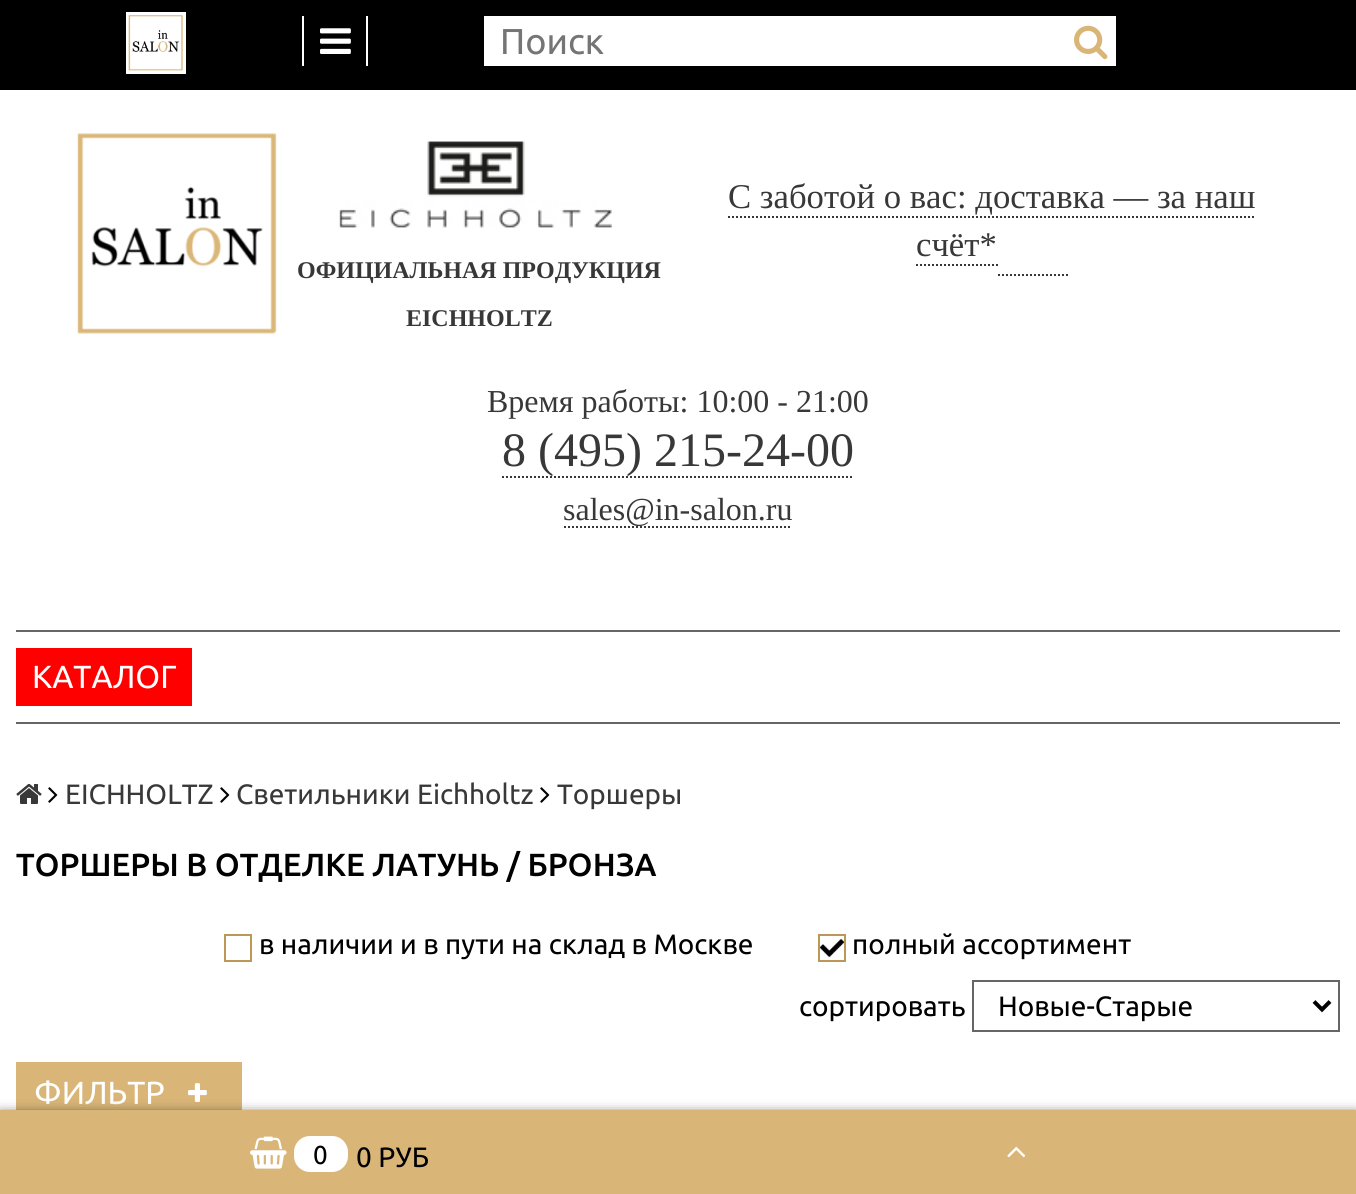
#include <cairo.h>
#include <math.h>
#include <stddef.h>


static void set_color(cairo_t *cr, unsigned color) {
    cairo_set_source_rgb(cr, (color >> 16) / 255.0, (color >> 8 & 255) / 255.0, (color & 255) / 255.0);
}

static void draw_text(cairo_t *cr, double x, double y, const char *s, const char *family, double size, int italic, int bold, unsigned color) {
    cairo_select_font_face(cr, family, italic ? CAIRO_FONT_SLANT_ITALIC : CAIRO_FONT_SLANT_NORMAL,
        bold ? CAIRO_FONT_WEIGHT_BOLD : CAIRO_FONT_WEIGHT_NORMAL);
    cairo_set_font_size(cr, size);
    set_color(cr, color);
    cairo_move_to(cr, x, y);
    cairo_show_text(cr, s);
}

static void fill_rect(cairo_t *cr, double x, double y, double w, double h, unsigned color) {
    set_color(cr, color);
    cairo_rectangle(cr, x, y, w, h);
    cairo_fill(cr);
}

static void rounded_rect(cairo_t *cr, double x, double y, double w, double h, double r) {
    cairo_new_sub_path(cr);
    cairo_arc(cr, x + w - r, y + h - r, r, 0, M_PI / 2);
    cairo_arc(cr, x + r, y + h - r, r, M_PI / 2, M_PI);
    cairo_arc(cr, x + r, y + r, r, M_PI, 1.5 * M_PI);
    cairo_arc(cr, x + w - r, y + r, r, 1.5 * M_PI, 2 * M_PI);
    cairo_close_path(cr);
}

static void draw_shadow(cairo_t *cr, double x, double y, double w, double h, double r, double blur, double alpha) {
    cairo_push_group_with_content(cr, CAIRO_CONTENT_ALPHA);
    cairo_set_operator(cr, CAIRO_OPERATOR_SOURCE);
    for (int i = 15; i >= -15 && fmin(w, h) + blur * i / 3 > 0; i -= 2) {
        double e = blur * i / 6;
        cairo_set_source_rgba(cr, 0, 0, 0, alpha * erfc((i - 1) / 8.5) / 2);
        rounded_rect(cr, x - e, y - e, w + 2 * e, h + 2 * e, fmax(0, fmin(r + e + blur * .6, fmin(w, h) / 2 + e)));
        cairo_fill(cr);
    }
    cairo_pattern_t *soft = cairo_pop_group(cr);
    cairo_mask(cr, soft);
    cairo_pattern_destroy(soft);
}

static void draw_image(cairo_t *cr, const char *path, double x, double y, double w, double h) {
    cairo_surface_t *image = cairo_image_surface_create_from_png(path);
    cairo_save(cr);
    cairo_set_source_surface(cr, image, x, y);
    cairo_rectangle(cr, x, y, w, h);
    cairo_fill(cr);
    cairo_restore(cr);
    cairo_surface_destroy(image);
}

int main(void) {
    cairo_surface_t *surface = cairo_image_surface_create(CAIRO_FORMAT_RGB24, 1356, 1194);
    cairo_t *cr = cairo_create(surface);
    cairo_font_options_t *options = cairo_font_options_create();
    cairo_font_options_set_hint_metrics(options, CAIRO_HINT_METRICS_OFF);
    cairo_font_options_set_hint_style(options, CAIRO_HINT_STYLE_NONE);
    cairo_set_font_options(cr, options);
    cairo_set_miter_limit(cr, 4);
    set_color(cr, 0xFFFFFF);
    cairo_paint(cr);
    fill_rect(cr, 0, 0, 1356, 90, 0x000000);
    fill_rect(cr, 126, 12, 60, 62, 0xFFFFFF);
    draw_image(cr, "assets/img1.png", 128, 15, 55, 56);
    fill_rect(cr, 366, 16, 2, 50, 0xFFFFFF);
    fill_rect(cr, 302, 16, 2, 50, 0xFFFFFF);
    draw_image(cr, "assets/img2.png", 320, 28, 31, 26);
    fill_rect(cr, 484, 16, 632, 50, 0xFFFFFF);
    draw_text(cr, 500, 54, "Поиск", "Ubuntu", 36, 0, 0, 0x757575);
    draw_image(cr, "assets/img3.png", 1074, 25, 34, 35);
    draw_image(cr, "assets/img4.png", 77, 133, 200, 201);
    draw_text(cr, 728, 208, "С заботой о вас: доставка — за наш", "Liberation Serif", 34.7, 0, 0, 0x383838);
    cairo_new_path(cr);
    cairo_move_to(cr, 728, 217);
    cairo_line_to(cr, 1256, 217);
    cairo_set_dash(cr, (double[]){2, 2}, 2, 0);
    cairo_stroke(cr);
    draw_text(cr, 916, 256, "счёт*", "Liberation Serif", 34.7, 0, 0, 0x383838);
    cairo_new_path(cr);
    cairo_move_to(cr, 916, 265);
    cairo_line_to(cr, 998, 265);
    cairo_stroke(cr);
    cairo_new_path(cr);
    cairo_move_to(cr, 998, 275);
    cairo_line_to(cr, 1068, 275);
    cairo_stroke(cr);
    draw_image(cr, "assets/img5.png", 326, 141, 306, 87);
    draw_text(cr, 297, 278, "ОФИЦИАЛЬНАЯ ПРОДУКЦИЯ", "Liberation Serif", 24, 0, 1, 0x383838);
    draw_text(cr, 406, 326, "EICHHOLTZ", "Liberation Serif", 24, 0, 1, 0x383838);
    draw_text(cr, 487, 412, "Время работы: 10:00 - 21:00", "Liberation Serif", 32, 0, 0, 0x383838);
    cairo_new_path(cr);
    cairo_move_to(cr, 502, 477);
    cairo_line_to(cr, 854, 477);
    cairo_stroke(cr);
    draw_text(cr, 502, 466, "8 (495) 215-24-00", "Liberation Serif", 48, 0, 0, 0x383838);
    cairo_new_path(cr);
    cairo_move_to(cr, 564, 527);
    cairo_line_to(cr, 792, 527);
    cairo_stroke(cr);
    draw_text(cr, 563, 520, "sales@in-salon.ru", "Liberation Serif", 32, 0, 0, 0x383838);
    fill_rect(cr, 16, 630, 1324, 2, 0x666666);
    fill_rect(cr, 16, 722, 1324, 2, 0x666666);
    fill_rect(cr, 16, 648, 176, 58, 0xFF0000);
    draw_text(cr, 32, 688, "КАТАЛОГ", "Ubuntu", 32, 0, 0, 0xFFFFFF);
    draw_image(cr, "assets/img6.png", 16, 784, 26, 20);
    draw_image(cr, "assets/img7.png", 48, 787, 10, 16);
    draw_text(cr, 65, 804, "EICHHOLTZ", "Ubuntu", 28, 0, 0, 0x383838);
    draw_image(cr, "assets/img7.png", 220, 787, 10, 16);
    draw_text(cr, 236, 804, "Светильники Eichholtz", "Ubuntu", 28, 0, 0, 0x383838);
    draw_image(cr, "assets/img7.png", 540, 787, 10, 16);
    draw_text(cr, 557, 804, "Торшеры", "Ubuntu", 28, 0, 0, 0x383838);
    draw_text(cr, 16, 876, "ТОРШЕРЫ В ОТДЕЛКЕ ЛАТУНЬ / БРОНЗА", "Ubuntu Medium", 32, 0, 0, 0x000000);
    cairo_rectangle(cr, 225, 935, 26, 26);
    set_color(cr, 0xBC9756);
    cairo_set_dash(cr, NULL, 0, 0);
    cairo_stroke(cr);
    draw_text(cr, 259, 954, "в наличии и в пути на склад в Москве", "Ubuntu", 28, 0, 0, 0x000000);
    draw_image(cr, "assets/img8.png", 820, 939, 24, 18);
    cairo_rectangle(cr, 819, 935, 26, 26);
    set_color(cr, 0xBC9756);
    cairo_stroke(cr);
    draw_text(cr, 852, 954, "полный ассортимент", "Ubuntu", 28, 0, 0, 0x000000);
    draw_text(cr, 799, 1016, "сортировать", "Ubuntu", 28, 0, 0, 0x000000);
    cairo_rectangle(cr, 973, 981, 366, 50);
    set_color(cr, 0x666666);
    cairo_stroke(cr);
    cairo_new_path(cr);
    cairo_move_to(cr, 1314, 1001.5);
    cairo_line_to(cr, 1322, 1009.5);
    cairo_line_to(cr, 1330, 1001.5);
    set_color(cr, 0x000000);
    cairo_set_line_width(cr, 4);
    cairo_stroke(cr);
    draw_text(cr, 998, 1016, "Новые-Старые", "Ubuntu", 28, 0, 0, 0x000000);
    fill_rect(cr, 16, 1062, 226, 48, 0xD9B577);
    draw_text(cr, 34, 1104, "ФИЛЬТР", "Ubuntu", 32, 0, 0, 0xFFFFFF);
    draw_image(cr, "assets/img9.png", 188, 1083, 19, 19);
    set_color(cr, 0x333333);
    draw_shadow(cr, 0, 1114, 1356, 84, 0, 6, 1);
    fill_rect(cr, 0, 1110, 1356, 84, 0xD9B577);
    draw_image(cr, "assets/img10.png", 1007, 1146, 19, 12);
    draw_image(cr, "assets/img11.png", 250, 1136, 37, 33);
    set_color(cr, 0xFFFFFF);
    rounded_rect(cr, 294, 1136, 54, 36, 16);
    cairo_fill(cr);
    draw_text(cr, 313, 1164, "0", "Ubuntu", 26, 0, 0, 0x000000);
    draw_text(cr, 356, 1167, "0 РУБ", "Ubuntu", 28, 0, 0, 0x000000);
    cairo_surface_write_to_png(surface, "output.png");
    cairo_font_options_destroy(options);
    cairo_destroy(cr);
    cairo_surface_destroy(surface);
    return 0;
}
